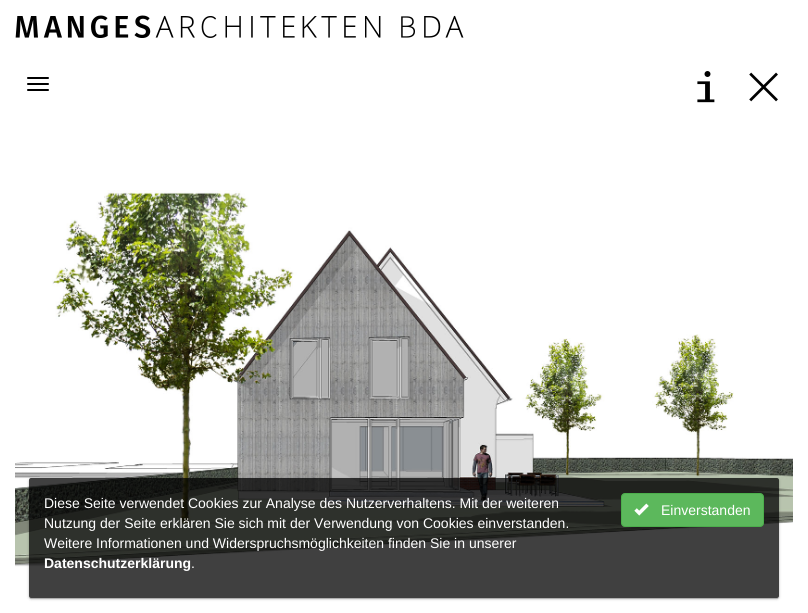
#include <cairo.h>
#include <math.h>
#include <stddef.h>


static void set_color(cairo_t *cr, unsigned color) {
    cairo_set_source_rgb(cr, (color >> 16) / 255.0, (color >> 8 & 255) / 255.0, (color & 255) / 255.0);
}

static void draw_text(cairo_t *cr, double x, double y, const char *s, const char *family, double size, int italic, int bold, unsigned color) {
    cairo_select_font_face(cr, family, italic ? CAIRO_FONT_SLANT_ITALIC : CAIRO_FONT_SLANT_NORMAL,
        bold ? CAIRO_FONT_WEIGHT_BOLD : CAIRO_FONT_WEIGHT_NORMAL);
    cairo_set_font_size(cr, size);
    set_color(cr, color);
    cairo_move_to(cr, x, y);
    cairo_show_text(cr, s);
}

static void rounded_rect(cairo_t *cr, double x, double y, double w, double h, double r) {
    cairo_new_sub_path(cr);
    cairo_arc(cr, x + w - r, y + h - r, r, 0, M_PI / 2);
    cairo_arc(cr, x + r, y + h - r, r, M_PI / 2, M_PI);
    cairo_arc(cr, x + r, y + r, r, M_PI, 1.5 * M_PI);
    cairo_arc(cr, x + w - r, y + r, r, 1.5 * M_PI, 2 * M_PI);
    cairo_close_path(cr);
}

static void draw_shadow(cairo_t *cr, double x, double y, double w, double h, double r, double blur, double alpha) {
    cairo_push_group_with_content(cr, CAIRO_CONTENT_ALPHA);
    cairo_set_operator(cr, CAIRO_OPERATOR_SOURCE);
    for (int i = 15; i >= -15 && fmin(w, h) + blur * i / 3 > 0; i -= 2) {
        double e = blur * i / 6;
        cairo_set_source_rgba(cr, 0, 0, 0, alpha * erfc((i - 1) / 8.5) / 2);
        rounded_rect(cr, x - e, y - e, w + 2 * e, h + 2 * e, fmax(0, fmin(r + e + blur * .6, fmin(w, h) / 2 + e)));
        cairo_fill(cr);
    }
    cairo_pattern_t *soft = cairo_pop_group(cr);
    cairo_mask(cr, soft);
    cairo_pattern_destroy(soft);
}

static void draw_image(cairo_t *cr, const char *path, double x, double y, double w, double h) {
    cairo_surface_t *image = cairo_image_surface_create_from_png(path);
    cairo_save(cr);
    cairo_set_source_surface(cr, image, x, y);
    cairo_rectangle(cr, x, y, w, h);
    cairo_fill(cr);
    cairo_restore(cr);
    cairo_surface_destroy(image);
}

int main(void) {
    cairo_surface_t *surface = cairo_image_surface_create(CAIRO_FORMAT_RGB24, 808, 613);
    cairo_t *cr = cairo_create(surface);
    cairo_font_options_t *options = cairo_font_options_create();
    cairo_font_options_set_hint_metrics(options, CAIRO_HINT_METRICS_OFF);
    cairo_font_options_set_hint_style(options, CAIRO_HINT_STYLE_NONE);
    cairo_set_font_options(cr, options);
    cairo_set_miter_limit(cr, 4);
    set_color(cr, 0xFFFFFF);
    cairo_paint(cr);
    draw_image(cr, "assets/img1.png", 15, 15, 449, 23);
    set_color(cr, 0x000000);
    rounded_rect(cr, 27, 77, 22, 2, 1);
    cairo_fill(cr);
    rounded_rect(cr, 27, 83, 22, 2, 1);
    cairo_fill(cr);
    rounded_rect(cr, 27, 89, 22, 2, 1);
    cairo_fill(cr);
    draw_image(cr, "assets/img2.png", 697, 71, 18, 32);
    draw_image(cr, "assets/img3.png", 749, 72, 29, 30);
    draw_image(cr, "assets/img4.png", 15, 190, 778, 377);
    cairo_save(cr);
    cairo_rectangle(cr, 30, 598, 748, 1);
    cairo_clip(cr);
    set_color(cr, 0x000000);
    draw_shadow(cr, 30, 481, 748, 118, 1, 0.5, 0.12);
    cairo_restore(cr);
    cairo_save(cr);
    cairo_set_fill_rule(cr, CAIRO_FILL_RULE_EVEN_ODD);
    cairo_new_path(cr);
    cairo_move_to(cr, 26, 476);
    cairo_line_to(cr, 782, 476);
    cairo_line_to(cr, 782, 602);
    cairo_line_to(cr, 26, 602);
    cairo_close_path(cr);
    cairo_move_to(cr, 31, 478);
    cairo_line_to(cr, 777, 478);
    cairo_curve_to(cr, 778, 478, 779, 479, 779, 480);
    cairo_line_to(cr, 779, 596);
    cairo_curve_to(cr, 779, 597, 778, 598, 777, 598);
    cairo_line_to(cr, 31, 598);
    cairo_curve_to(cr, 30, 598, 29, 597, 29, 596);
    cairo_line_to(cr, 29, 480);
    cairo_curve_to(cr, 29, 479, 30, 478, 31, 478);
    cairo_close_path(cr);
    cairo_clip(cr);
    set_color(cr, 0x000000);
    draw_shadow(cr, 29, 479, 750, 120, 2, 0.5, 0.14);
    cairo_restore(cr);
    cairo_save(cr);
    cairo_set_fill_rule(cr, CAIRO_FILL_RULE_EVEN_ODD);
    cairo_new_path(cr);
    cairo_move_to(cr, 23, 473);
    cairo_line_to(cr, 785, 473);
    cairo_line_to(cr, 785, 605);
    cairo_line_to(cr, 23, 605);
    cairo_close_path(cr);
    cairo_move_to(cr, 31, 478);
    cairo_line_to(cr, 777, 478);
    cairo_curve_to(cr, 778, 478, 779, 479, 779, 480);
    cairo_line_to(cr, 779, 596);
    cairo_curve_to(cr, 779, 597, 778, 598, 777, 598);
    cairo_line_to(cr, 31, 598);
    cairo_curve_to(cr, 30, 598, 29, 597, 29, 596);
    cairo_line_to(cr, 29, 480);
    cairo_curve_to(cr, 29, 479, 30, 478, 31, 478);
    cairo_close_path(cr);
    cairo_clip(cr);
    set_color(cr, 0x000000);
    draw_shadow(cr, 29, 479, 750, 120, 2, 1.5, 0.2);
    cairo_restore(cr);
    cairo_set_source_rgba(cr, 0, 0, 0, 0.75);
    rounded_rect(cr, 29, 478, 750, 120, 2);
    cairo_fill(cr);
    draw_text(cr, 44, 508, "Diese Seite verwendet Cookies zur Analyse des Nutzerverhaltens. Mit der weiteren", "Liberation Sans", 14, 0, 0, 0xFFFFFF);
    draw_text(cr, 44, 528, "Nutzung der Seite erklären Sie sich mit der Verwendung von Cookies einverstanden.", "Liberation Sans", 14, 0, 0, 0xFFFFFF);
    draw_text(cr, 44, 548, "Weitere Informationen und Widerspruchsmöglichkeiten finden Sie in unserer", "Liberation Sans", 14, 0, 0, 0xFFFFFF);
    draw_text(cr, 44, 568, "Datenschutzerklärung", "Liberation Sans", 14, 0, 1, 0xFFFFFF);
    draw_text(cr, 191, 568, ".", "Liberation Sans", 14, 0, 0, 0xFFFFFF);
    set_color(cr, 0x5CB85C);
    rounded_rect(cr, 621.5, 493.5, 142, 33, 3.5);
    cairo_fill_preserve(cr);
    set_color(cr, 0x4CAE4C);
    cairo_set_line_width(cr, 1);
    cairo_stroke(cr);
    draw_image(cr, "assets/img5.png", 634, 503, 15, 13);
    draw_text(cr, 661, 515, "Einverstanden", "Liberation Sans", 14, 0, 0, 0xFFFFFF);
    cairo_surface_write_to_png(surface, "output.png");
    cairo_font_options_destroy(options);
    cairo_destroy(cr);
    cairo_surface_destroy(surface);
    return 0;
}
